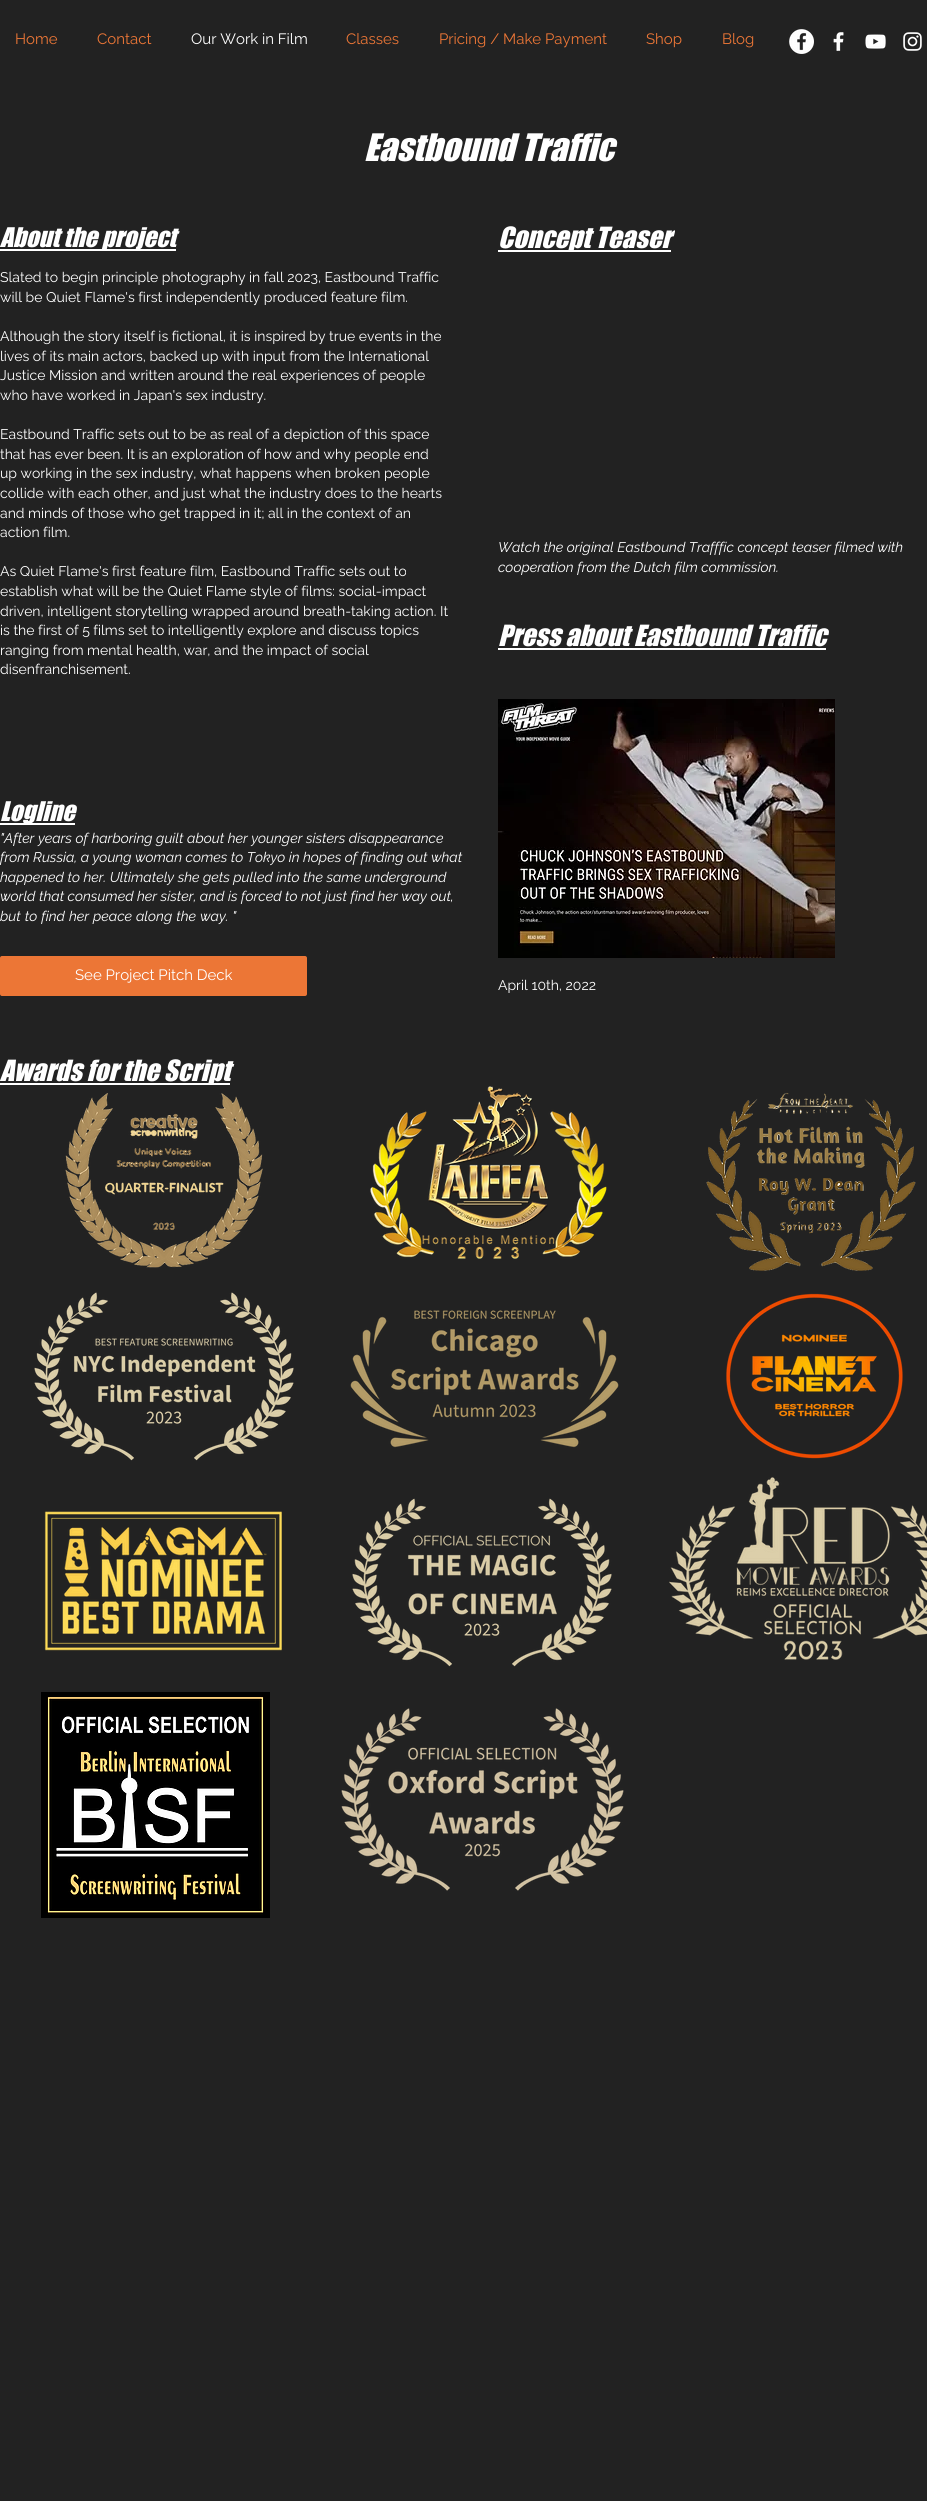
#include <cairo.h>
#include <math.h>
#include <stddef.h>


static void set_color(cairo_t *cr, unsigned color) {
    cairo_set_source_rgb(cr, (color >> 16) / 255.0, (color >> 8 & 255) / 255.0, (color & 255) / 255.0);
}

static void draw_text(cairo_t *cr, double x, double y, const char *s, const char *family, double size, int italic, int bold, unsigned color) {
    cairo_select_font_face(cr, family, italic ? CAIRO_FONT_SLANT_ITALIC : CAIRO_FONT_SLANT_NORMAL,
        bold ? CAIRO_FONT_WEIGHT_BOLD : CAIRO_FONT_WEIGHT_NORMAL);
    cairo_set_font_size(cr, size);
    set_color(cr, color);
    cairo_move_to(cr, x, y);
    cairo_show_text(cr, s);
}

static void draw_spaced(cairo_t *cr, double x, double y, const char *s, double letter, double word) {
    cairo_move_to(cr, x, y);
    while (*s) {
        char ch[5] = {0};
        int n = 0;
        do ch[n++] = *s++; while ((*s & 0xC0) == 0x80);
        cairo_show_text(cr, ch);
        cairo_rel_move_to(cr, letter + word * (*ch == ' '), 0);
    }
}

static void fill_rect(cairo_t *cr, double x, double y, double w, double h, unsigned color) {
    set_color(cr, color);
    cairo_rectangle(cr, x, y, w, h);
    cairo_fill(cr);
}

static void rounded_rect(cairo_t *cr, double x, double y, double w, double h, double r) {
    cairo_new_sub_path(cr);
    cairo_arc(cr, x + w - r, y + h - r, r, 0, M_PI / 2);
    cairo_arc(cr, x + r, y + h - r, r, M_PI / 2, M_PI);
    cairo_arc(cr, x + r, y + r, r, M_PI, 1.5 * M_PI);
    cairo_arc(cr, x + w - r, y + r, r, 1.5 * M_PI, 2 * M_PI);
    cairo_close_path(cr);
}

static void draw_image(cairo_t *cr, const char *path, double x, double y, double w, double h) {
    cairo_surface_t *image = cairo_image_surface_create_from_png(path);
    cairo_save(cr);
    cairo_set_source_surface(cr, image, x, y);
    cairo_rectangle(cr, x, y, w, h);
    cairo_fill(cr);
    cairo_restore(cr);
    cairo_surface_destroy(image);
}

int main(void) {
    cairo_surface_t *surface = cairo_image_surface_create(CAIRO_FORMAT_RGB24, 927, 2501);
    cairo_t *cr = cairo_create(surface);
    cairo_font_options_t *options = cairo_font_options_create();
    cairo_font_options_set_hint_metrics(options, CAIRO_HINT_METRICS_OFF);
    cairo_font_options_set_hint_style(options, CAIRO_HINT_STYLE_NONE);
    cairo_set_font_options(cr, options);
    cairo_set_miter_limit(cr, 4);
    set_color(cr, 0x222222);
    cairo_paint(cr);
    draw_text(cr, 15, 44, "Home", "Raleway", 15, 0, 0, 0xEC7636);
    draw_text(cr, 97, 44, "Contact", "Raleway", 15, 0, 0, 0xEC7636);
    draw_text(cr, 191, 44, "Our Work in Film", "Raleway", 15, 0, 0, 0xFFFFFF);
    draw_text(cr, 346, 44, "Classes", "Raleway", 15, 0, 0, 0xEC7636);
    draw_text(cr, 439, 44, "Pricing / Make Payment", "Raleway", 15, 0, 0, 0xEC7636);
    draw_text(cr, 646, 44, "Shop", "Raleway", 15, 0, 0, 0xEC7636);
    draw_text(cr, 722, 44, "Blog", "Raleway", 15, 0, 0, 0xEC7636);
    draw_image(cr, "assets/img1.png", 789, 29, 25, 25);
    draw_image(cr, "assets/img2.png", 833, 32, 11, 19);
    draw_image(cr, "assets/img3.png", 865, 34, 21, 15);
    draw_image(cr, "assets/img4.png", 903, 32, 19, 19);
    draw_text(cr, 364, 161, "Eastbound Traffic", "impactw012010", 35, 1, 0, 0xFFFFFF);
    fill_rect(cr, 0, 249, 176, 2, 0xFFFFFF);
    draw_text(cr, 0, 247, "About the project", "impactw012010", 25, 1, 0, 0xFFFFFF);
    fill_rect(cr, 498, 250, 173, 2, 0xFFFFFF);
    draw_text(cr, 498, 248, "Concept Teaser", "impactw012010", 27, 1, 0, 0xFFFFFF);
    draw_text(cr, 0, 282, "Slated to begin principle photography in fall 2023, Eastbound Traffic", "Raleway", 14, 0, 0, 0xFFFFFF);
    draw_text(cr, 0, 302, "will be Quiet Flame's first independently produced feature film.", "Raleway", 14, 0, 0, 0xFFFFFF);
    draw_text(cr, 0, 341, "Although the story itself is fictional, it is inspired by true events in the", "Raleway", 14, 0, 0, 0xFFFFFF);
    draw_text(cr, 0, 361, "lives of its main actors, backed up with input from the International", "Raleway", 14, 0, 0, 0xFFFFFF);
    draw_text(cr, 0, 380, "Justice Mission and written around the real experiences of people", "Raleway", 14, 0, 0, 0xFFFFFF);
    draw_text(cr, 0, 400, "who have worked in Japan's sex industry.", "Raleway", 14, 0, 0, 0xFFFFFF);
    draw_text(cr, 0, 439, "Eastbound Traffic sets out to be as real of a depiction of this space", "Raleway", 14, 0, 0, 0xFFFFFF);
    draw_text(cr, 0, 459, "that has ever been. It is an exploration of how and why people end", "Raleway", 14, 0, 0, 0xFFFFFF);
    draw_text(cr, 0, 478, "up working in the sex industry, what happens when broken people", "Raleway", 14, 0, 0, 0xFFFFFF);
    draw_text(cr, 0, 498, "collide with each other, and just what the industry does to the hearts", "Raleway", 14, 0, 0, 0xFFFFFF);
    draw_text(cr, 0, 518, "and minds of those who get trapped in it; all in the context of an", "Raleway", 14, 0, 0, 0xFFFFFF);
    draw_text(cr, 0, 537, "action film.", "Raleway", 14, 0, 0, 0xFFFFFF);
    draw_text(cr, 0, 576, "As Quiet Flame's first feature film, Eastbound Traffic sets out to", "Raleway", 14, 0, 0, 0xFFFFFF);
    draw_text(cr, 0, 596, "establish what will be the Quiet Flame style of films: social-impact", "Raleway", 14, 0, 0, 0xFFFFFF);
    draw_text(cr, 0, 616, "driven, intelligent storytelling wrapped around breath-taking action. It", "Raleway", 14, 0, 0, 0xFFFFFF);
    draw_text(cr, 0, 635, "is the first of 5 films set to intelligently explore and discuss topics", "Raleway", 14, 0, 0, 0xFFFFFF);
    draw_text(cr, 0, 655, "ranging from mental health, war, and the impact of social", "Raleway", 14, 0, 0, 0xFFFFFF);
    draw_text(cr, 0, 674, "disenfranchisement.", "Raleway", 14, 0, 0, 0xFFFFFF);
    draw_text(cr, 498, 552, "Watch the original Eastbound Trafffic concept teaser filmed with", "Raleway", 14, 1, 0, 0xFFFFFF);
    draw_text(cr, 498, 572, "cooperation from the Dutch film commission.", "Raleway", 14, 1, 0, 0xFFFFFF);
    draw_text(cr, 498, 646, "Press about Eastbound Traffic", "impactw012010", 27, 1, 0, 0xFFFFFF);
    fill_rect(cr, 498, 648, 328, 2, 0xFFFFFF);
    fill_rect(cr, 0, 823, 75, 2, 0xFFFFFF);
    draw_text(cr, 0, 821, "Logline", "impactw012010", 25, 1, 0, 0xFFFFFF);
    draw_image(cr, "assets/img5.png", 498, 699, 337, 259);
    draw_text(cr, 0, 843, "\"After years of harboring guilt about her younger sisters disappearance", "Raleway", 14, 1, 0, 0xFFFFFF);
    draw_text(cr, 0, 862, "from Russia, a young woman comes to Tokyo in hopes of finding out what", "Raleway", 14, 1, 0, 0xFFFFFF);
    draw_text(cr, 0, 882, "happened to her. Ultimately she gets pulled into the same underground", "Raleway", 14, 1, 0, 0xFFFFFF);
    draw_text(cr, 0, 901, "world that consumed her sister, and is forced to not just find her way out,", "Raleway", 14, 1, 0, 0xFFFFFF);
    draw_spaced(cr, 0, 921, "but to find her peace along the way. \"", 0, 0.5);
    set_color(cr, 0xEC7636);
    rounded_rect(cr, 0, 956, 307, 40, 2);
    cairo_fill(cr);
    draw_text(cr, 75, 980, "See Project Pitch Deck", "Raleway", 15, 0, 0, 0xFFFFFF);
    draw_text(cr, 498, 990, "April 10th, 2022", "Raleway", 14, 0, 0, 0xFFFFFF);
    fill_rect(cr, 0, 1083, 230, 2, 0xFFFFFF);
    draw_text(cr, 0, 1081, "Awards for the Script", "impactw012010", 27, 1, 0, 0xFFFFFF);
    draw_image(cr, "assets/img6.png", 65, 1093, 198, 175);
    draw_image(cr, "assets/img7.png", 370, 1086, 237, 173);
    draw_image(cr, "assets/img8.png", 706, 1092, 210, 179);
    draw_image(cr, "assets/img9.png", 34, 1292, 260, 169);
    draw_image(cr, "assets/img10.png", 350, 1310, 269, 138);
    draw_image(cr, "assets/img11.png", 726, 1293, 177, 166);
    draw_image(cr, "assets/img12.png", 44, 1511, 238, 140);
    draw_image(cr, "assets/img13.png", 352, 1498, 260, 169);
    draw_image(cr, "assets/img14.png", 669, 1477, 258, 183);
    draw_image(cr, "assets/img15.png", 41, 1692, 229, 226);
    draw_image(cr, "assets/img16.png", 341, 1708, 283, 183);
    cairo_surface_write_to_png(surface, "output.png");
    cairo_font_options_destroy(options);
    cairo_destroy(cr);
    cairo_surface_destroy(surface);
    return 0;
}
